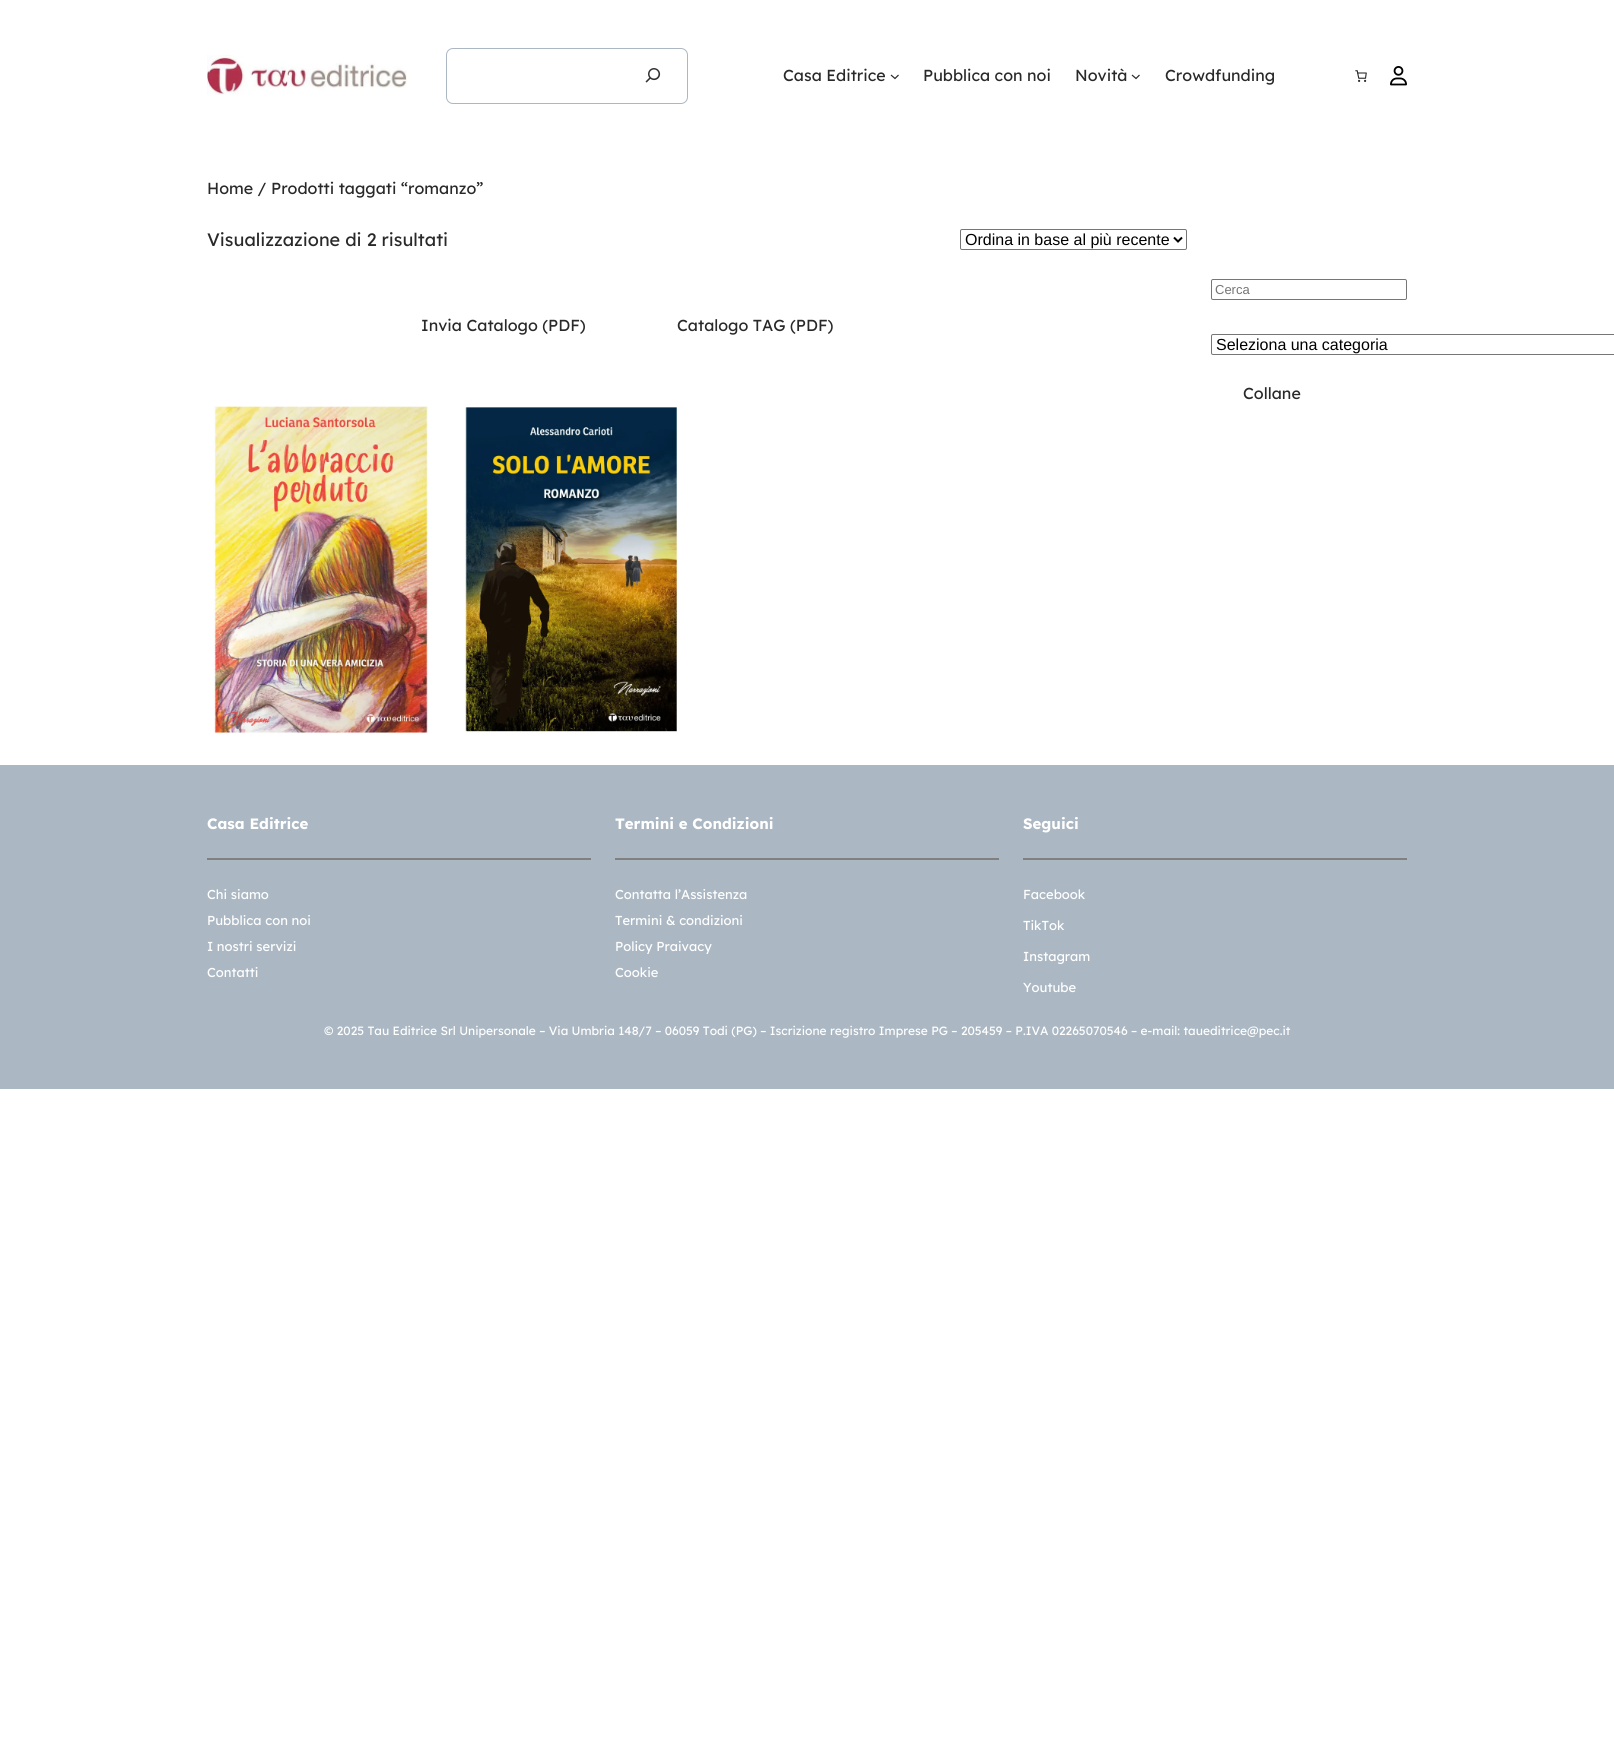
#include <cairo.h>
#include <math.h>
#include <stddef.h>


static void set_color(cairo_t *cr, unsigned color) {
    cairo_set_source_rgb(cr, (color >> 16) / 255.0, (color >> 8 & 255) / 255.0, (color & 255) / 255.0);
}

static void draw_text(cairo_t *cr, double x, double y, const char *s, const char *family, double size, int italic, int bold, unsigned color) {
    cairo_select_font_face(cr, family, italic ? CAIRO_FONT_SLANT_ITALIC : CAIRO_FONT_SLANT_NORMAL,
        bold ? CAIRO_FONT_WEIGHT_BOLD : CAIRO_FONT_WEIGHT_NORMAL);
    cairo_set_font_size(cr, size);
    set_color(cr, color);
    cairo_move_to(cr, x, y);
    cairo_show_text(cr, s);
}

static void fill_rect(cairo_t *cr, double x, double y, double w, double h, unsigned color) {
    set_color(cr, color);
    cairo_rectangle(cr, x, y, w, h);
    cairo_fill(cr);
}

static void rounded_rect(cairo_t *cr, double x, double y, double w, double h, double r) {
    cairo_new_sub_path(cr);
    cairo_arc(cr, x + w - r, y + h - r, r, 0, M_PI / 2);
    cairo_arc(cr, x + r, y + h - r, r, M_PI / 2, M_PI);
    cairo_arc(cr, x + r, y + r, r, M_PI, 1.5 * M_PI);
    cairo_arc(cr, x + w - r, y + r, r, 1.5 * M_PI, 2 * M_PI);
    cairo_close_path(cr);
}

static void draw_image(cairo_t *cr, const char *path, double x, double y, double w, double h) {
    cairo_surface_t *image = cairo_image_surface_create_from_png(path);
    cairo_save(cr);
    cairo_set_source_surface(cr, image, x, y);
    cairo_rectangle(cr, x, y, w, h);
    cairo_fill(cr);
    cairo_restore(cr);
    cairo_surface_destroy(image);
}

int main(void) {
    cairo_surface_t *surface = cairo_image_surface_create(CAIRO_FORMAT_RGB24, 1614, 1749);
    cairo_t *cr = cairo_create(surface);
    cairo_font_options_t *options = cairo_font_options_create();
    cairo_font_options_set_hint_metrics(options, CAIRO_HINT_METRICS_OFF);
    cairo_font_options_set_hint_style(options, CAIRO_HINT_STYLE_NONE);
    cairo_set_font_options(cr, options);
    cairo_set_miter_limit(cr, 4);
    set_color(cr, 0xFFFFFF);
    cairo_paint(cr);
    draw_image(cr, "assets/img1.png", 207, 55, 200, 40);
    rounded_rect(cr, 446.5, 48.5, 241, 55, 6.5);
    set_color(cr, 0xABB8C3);
    cairo_set_line_width(cr, 1);
    cairo_stroke(cr);
    draw_image(cr, "assets/img2.png", 645, 68, 16, 15);
    draw_text(cr, 783, 81, "Casa Editrice", "Lexend", 16, 0, 0, 0x292929);
    cairo_new_path(cr);
    cairo_move_to(cr, 891, 75);
    cairo_line_to(cr, 895, 78.5);
    cairo_line_to(cr, 898.5, 75);
    cairo_set_line_width(cr, 1.2);
    cairo_stroke(cr);
    draw_text(cr, 923, 81, "Pubblica con noi", "Lexend", 16, 0, 0, 0x292929);
    draw_text(cr, 1075, 81, "Novità", "Lexend", 16, 0, 0, 0x292929);
    cairo_new_path(cr);
    cairo_move_to(cr, 1132, 75);
    cairo_line_to(cr, 1136, 78.5);
    cairo_line_to(cr, 1139.5, 75);
    cairo_stroke(cr);
    draw_text(cr, 1165, 81, "Crowdfunding", "Lexend", 16, 0, 0, 0x292929);
    draw_image(cr, "assets/img3.png", 1355, 70, 12, 12);
    draw_image(cr, "assets/img4.png", 1390, 66, 17, 20);
    draw_text(cr, 207, 194, "Home / Prodotti taggati “romanzo”", "Lexend", 16, 0, 0, 0x292929);
    draw_text(cr, 207, 246, "Visualizzazione di 2 risultati", "Lexend", 18, 0, 0, 0x292929);
    rounded_rect(cr, 960.5, 229.5, 226, 20, 1.5);
    set_color(cr, 0x767676);
    cairo_set_line_width(cr, 1);
    cairo_stroke(cr);
    cairo_new_path(cr);
    cairo_move_to(cr, 1174, 237.5);
    cairo_line_to(cr, 1178, 241.5);
    cairo_line_to(cr, 1182, 237.5);
    set_color(cr, 0x000000);
    cairo_set_line_width(cr, 2);
    cairo_stroke(cr);
    draw_text(cr, 965, 245, "Ordina in base al più recente", "Liberation Sans", 16, 0, 0, 0x000000);
    draw_text(cr, 421, 331, "Invia Catalogo (PDF)", "Lexend", 16, 0, 0, 0x292929);
    draw_text(cr, 677, 331, "Catalogo TAG (PDF)", "Lexend", 16, 0, 0, 0x292929);
    draw_image(cr, "assets/img5.png", 213, 406, 216, 328);
    draw_image(cr, "assets/img6.png", 464, 407, 214, 327);
    rounded_rect(cr, 1211.5, 279.5, 195, 20, 1.5);
    set_color(cr, 0x767676);
    cairo_set_line_width(cr, 1);
    cairo_stroke(cr);
    draw_text(cr, 1215, 294, "Cerca", "Liberation Sans", 13, 0, 0, 0x757575);
    rounded_rect(cr, 1211.5, 334.5, 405, 20, 1.5);
    set_color(cr, 0x767676);
    cairo_stroke(cr);
    draw_text(cr, 1216, 350, "Seleziona una categoria", "Liberation Sans", 16, 0, 0, 0x000000);
    draw_text(cr, 1243, 399, "Collane", "Lexend", 16, 0, 0, 0x292929);
    fill_rect(cr, 0, 765, 1614, 324, 0xABB8C3);
    draw_text(cr, 207, 829, "Casa Editrice", "Lexend", 15, 0, 1, 0xFFFFFF);
    fill_rect(cr, 207, 858, 384, 2, 0x808080);
    draw_text(cr, 207, 899, "Chi siamo", "Lexend", 13, 0, 0, 0xFFFFFF);
    draw_text(cr, 207, 925, "Pubblica con noi", "Lexend", 13, 0, 0, 0xFFFFFF);
    draw_text(cr, 207, 951, "I nostri servizi", "Lexend", 13, 0, 0, 0xFFFFFF);
    draw_text(cr, 207, 977, "Contatti", "Lexend", 13, 0, 0, 0xFFFFFF);
    draw_text(cr, 615, 829, "Termini e Condizioni", "Lexend", 15, 0, 1, 0xFFFFFF);
    fill_rect(cr, 615, 858, 384, 2, 0x808080);
    draw_text(cr, 615, 899, "Contatta l’Assistenza", "Lexend", 13, 0, 0, 0xFFFFFF);
    draw_text(cr, 615, 925, "Termini & condizioni", "Lexend", 13, 0, 0, 0xFFFFFF);
    draw_text(cr, 615, 951, "Policy Praivacy", "Lexend", 13, 0, 0, 0xFFFFFF);
    draw_text(cr, 615, 977, "Cookie", "Lexend", 13, 0, 0, 0xFFFFFF);
    draw_text(cr, 1023, 829, "Seguici", "Lexend", 15, 0, 1, 0xFFFFFF);
    fill_rect(cr, 1023, 858, 384, 2, 0x808080);
    draw_text(cr, 1023, 899, "Facebook", "Lexend", 13, 0, 0, 0xFFFFFF);
    draw_text(cr, 1023, 930, "TikTok", "Lexend", 13, 0, 0, 0xFFFFFF);
    draw_text(cr, 1023, 961, "Instagram", "Lexend", 13, 0, 0, 0xFFFFFF);
    draw_text(cr, 1023, 992, "Youtube", "Lexend", 13, 0, 0, 0xFFFFFF);
    draw_text(cr, 324, 1035, "© 2025 Tau Editrice Srl Unipersonale – Via Umbria 148/7 – 06059 Todi (PG) – Iscrizione registro Imprese PG – 205459 – P.IVA 02265070546 – e-mail: taueditrice@pec.it", "Lexend", 12, 0, 0, 0xFFFFFF);
    cairo_surface_write_to_png(surface, "output.png");
    cairo_font_options_destroy(options);
    cairo_destroy(cr);
    cairo_surface_destroy(surface);
    return 0;
}
